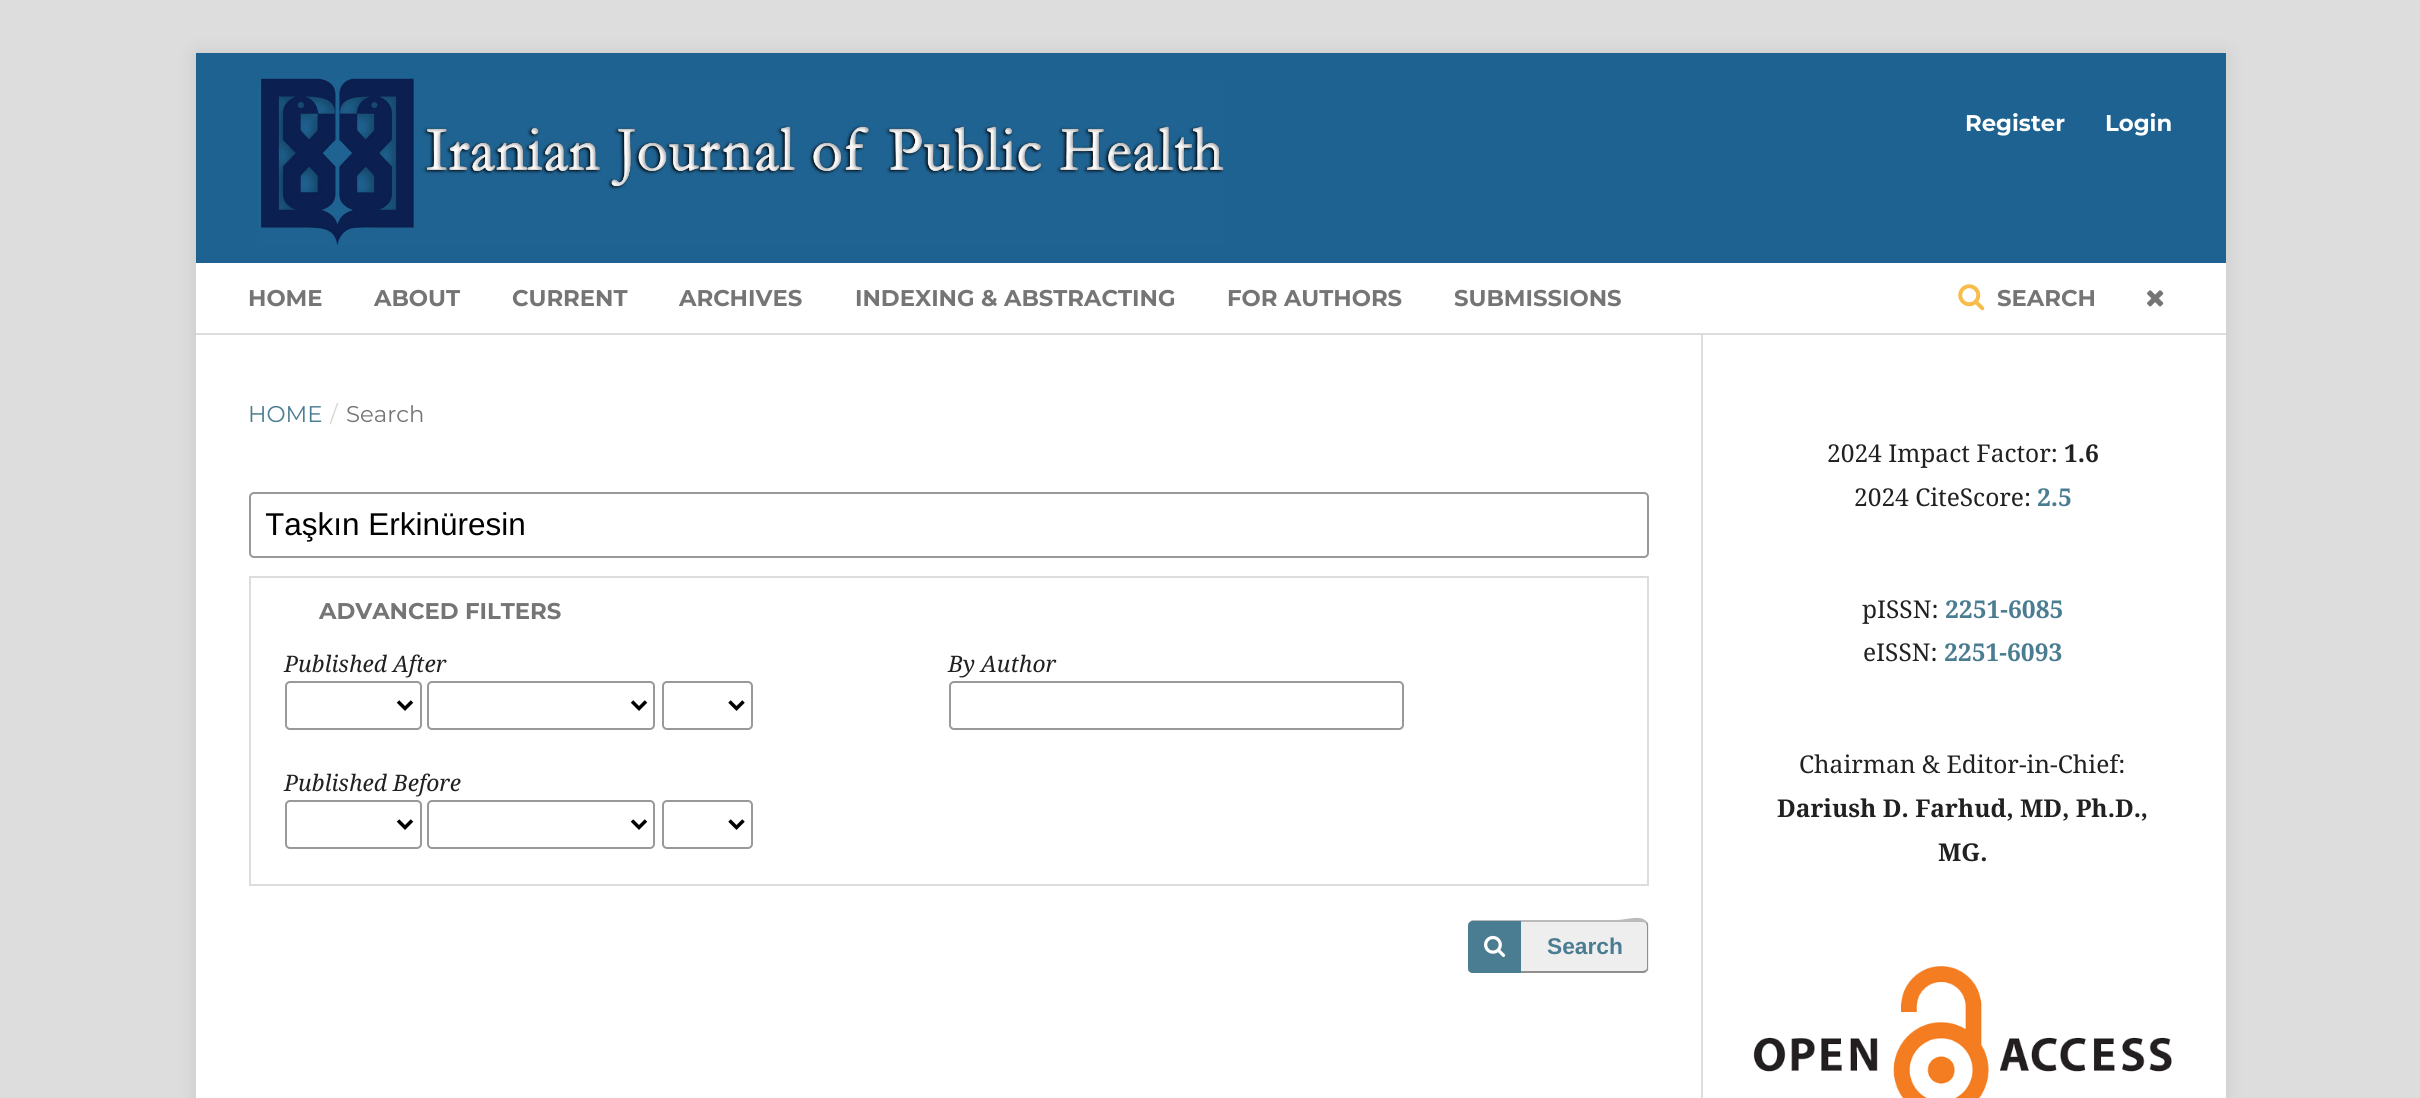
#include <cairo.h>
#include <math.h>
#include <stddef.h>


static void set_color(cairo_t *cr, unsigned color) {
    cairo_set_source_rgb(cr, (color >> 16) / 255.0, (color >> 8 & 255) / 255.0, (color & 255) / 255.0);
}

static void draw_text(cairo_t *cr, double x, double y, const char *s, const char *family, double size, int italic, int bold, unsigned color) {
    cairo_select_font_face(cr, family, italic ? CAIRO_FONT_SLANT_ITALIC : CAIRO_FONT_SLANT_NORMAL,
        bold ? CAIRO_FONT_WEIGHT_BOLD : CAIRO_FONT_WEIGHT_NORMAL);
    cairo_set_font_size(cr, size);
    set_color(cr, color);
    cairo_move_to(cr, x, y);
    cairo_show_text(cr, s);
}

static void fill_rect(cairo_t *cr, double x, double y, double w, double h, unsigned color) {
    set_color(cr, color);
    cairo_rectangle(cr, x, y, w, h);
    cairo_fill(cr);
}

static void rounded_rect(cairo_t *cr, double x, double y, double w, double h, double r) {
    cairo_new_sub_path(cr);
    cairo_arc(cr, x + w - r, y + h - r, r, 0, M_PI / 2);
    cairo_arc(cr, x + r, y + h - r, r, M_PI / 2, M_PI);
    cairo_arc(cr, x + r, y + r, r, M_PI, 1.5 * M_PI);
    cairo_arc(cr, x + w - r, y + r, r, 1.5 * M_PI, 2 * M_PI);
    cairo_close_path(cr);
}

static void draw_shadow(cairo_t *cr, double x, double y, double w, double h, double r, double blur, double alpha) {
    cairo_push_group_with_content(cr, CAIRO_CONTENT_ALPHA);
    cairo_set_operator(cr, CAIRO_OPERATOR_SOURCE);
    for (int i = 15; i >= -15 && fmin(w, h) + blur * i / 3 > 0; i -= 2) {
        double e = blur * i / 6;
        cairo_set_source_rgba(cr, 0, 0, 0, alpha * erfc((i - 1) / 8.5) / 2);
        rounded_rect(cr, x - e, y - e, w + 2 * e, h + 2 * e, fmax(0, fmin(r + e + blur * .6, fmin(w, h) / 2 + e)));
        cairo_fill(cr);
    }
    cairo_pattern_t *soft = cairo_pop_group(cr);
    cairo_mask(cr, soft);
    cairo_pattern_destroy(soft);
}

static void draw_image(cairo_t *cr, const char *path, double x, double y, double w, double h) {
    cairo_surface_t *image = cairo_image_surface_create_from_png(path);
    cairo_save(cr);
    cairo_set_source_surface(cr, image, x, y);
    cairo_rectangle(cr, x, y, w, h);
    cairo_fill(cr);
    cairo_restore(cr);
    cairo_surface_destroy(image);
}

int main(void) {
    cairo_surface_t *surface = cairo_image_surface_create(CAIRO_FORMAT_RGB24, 2420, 1098);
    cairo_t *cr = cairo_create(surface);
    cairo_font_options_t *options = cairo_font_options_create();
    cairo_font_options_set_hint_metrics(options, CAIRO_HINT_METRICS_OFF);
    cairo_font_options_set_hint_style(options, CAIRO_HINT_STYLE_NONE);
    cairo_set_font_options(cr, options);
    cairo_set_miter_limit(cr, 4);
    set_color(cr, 0xDDDDDD);
    cairo_paint(cr);
    set_color(cr, 0x000000);
    draw_shadow(cr, 196, 53, 2030, 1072, 0, 9, 0.1);
    fill_rect(cr, 196, 335, 2030, 763, 0xFFFFFF);
    fill_rect(cr, 196, 53, 2030, 210, 0x1E6292);
    fill_rect(cr, 196, 333, 2030, 2, 0xDDDDDD);
    draw_image(cr, "assets/img1.png", 257, 78, 968, 167);
    draw_text(cr, 1965, 131, "Register", "Montserrat", 22.75, 0, 1, 0xFFFFFF);
    draw_text(cr, 2105, 131, "Login", "Montserrat", 22.75, 0, 1, 0xFFFFFF);
    fill_rect(cr, 196, 263, 2030, 70, 0xFFFFFF);
    draw_text(cr, 248, 306, "HOME", "Montserrat", 22.75, 0, 1, 0x757575);
    draw_text(cr, 374, 306, "ABOUT", "Montserrat", 22.75, 0, 1, 0x757575);
    draw_text(cr, 512, 306, "CURRENT", "Montserrat", 22.75, 0, 1, 0x757575);
    draw_text(cr, 679, 306, "ARCHIVES", "Montserrat", 22.75, 0, 1, 0x757575);
    draw_text(cr, 855, 306, "INDEXING & ABSTRACTING", "Montserrat", 22.75, 0, 1, 0x757575);
    draw_text(cr, 1227, 306, "FOR AUTHORS", "Montserrat", 22.75, 0, 1, 0x757575);
    draw_text(cr, 1454, 306, "SUBMISSIONS", "Montserrat", 22.75, 0, 1, 0x757575);
    draw_image(cr, "assets/img2.png", 1958, 284, 27, 27);
    draw_text(cr, 1997, 306, "SEARCH", "Montserrat", 22.75, 0, 1, 0x757575);
    draw_image(cr, "assets/img3.png", 2147, 290, 17, 17);
    draw_text(cr, 248, 422, "HOME", "Montserrat", 22.75, 0, 0, 0x4B7D92);
    draw_text(cr, 330, 422, "/", "Montserrat", 22.75, 0, 0, 0xD6D6D6);
    draw_text(cr, 346, 422, "Search", "Montserrat", 22.75, 0, 0, 0x757575);
    rounded_rect(cr, 250, 493, 1398, 64, 4);
    set_color(cr, 0x999999);
    cairo_stroke(cr);
    cairo_save(cr);
    cairo_rectangle(cr, 266, 492, 1365, 66);
    cairo_clip(cr);
    draw_text(cr, 265, 535, "Taşkın Erkinüresin", "Liberation Sans", 31.5, 0, 0, 0x000000);
    cairo_restore(cr);
    cairo_rectangle(cr, 250, 577, 1398, 308);
    set_color(cr, 0xDDDDDD);
    cairo_stroke(cr);
    draw_text(cr, 319, 619, "ADVANCED FILTERS", "Montserrat", 22.75, 0, 1, 0x757575);
    draw_text(cr, 284, 672, "Published After", "Noto Serif", 22.75, 1, 0, 0x212121);
    rounded_rect(cr, 286, 682, 135, 47, 4);
    set_color(cr, 0x999999);
    cairo_stroke(cr);
    cairo_new_path(cr);
    cairo_move_to(cr, 398, 701.5);
    cairo_line_to(cr, 405, 708.5);
    cairo_line_to(cr, 412, 701.5);
    set_color(cr, 0x000000);
    cairo_set_line_width(cr, 3.5);
    cairo_stroke(cr);
    rounded_rect(cr, 428, 682, 226, 47, 4);
    set_color(cr, 0x999999);
    cairo_set_line_width(cr, 2);
    cairo_stroke(cr);
    cairo_new_path(cr);
    cairo_move_to(cr, 632, 701.5);
    cairo_line_to(cr, 639, 708.5);
    cairo_line_to(cr, 646, 701.5);
    set_color(cr, 0x000000);
    cairo_set_line_width(cr, 3.5);
    cairo_stroke(cr);
    rounded_rect(cr, 663, 682, 89, 47, 4);
    set_color(cr, 0x999999);
    cairo_set_line_width(cr, 2);
    cairo_stroke(cr);
    cairo_new_path(cr);
    cairo_move_to(cr, 729.5, 701.5);
    cairo_line_to(cr, 736.5, 708.5);
    cairo_line_to(cr, 743.5, 701.5);
    set_color(cr, 0x000000);
    cairo_set_line_width(cr, 3.5);
    cairo_stroke(cr);
    draw_text(cr, 284, 791, "Published Before", "Noto Serif", 22.75, 1, 0, 0x212121);
    rounded_rect(cr, 286, 801, 135, 47, 4);
    set_color(cr, 0x999999);
    cairo_set_line_width(cr, 2);
    cairo_stroke(cr);
    cairo_new_path(cr);
    cairo_move_to(cr, 398, 820.5);
    cairo_line_to(cr, 405, 827.5);
    cairo_line_to(cr, 412, 820.5);
    set_color(cr, 0x000000);
    cairo_set_line_width(cr, 3.5);
    cairo_stroke(cr);
    rounded_rect(cr, 428, 801, 226, 47, 4);
    set_color(cr, 0x999999);
    cairo_set_line_width(cr, 2);
    cairo_stroke(cr);
    cairo_new_path(cr);
    cairo_move_to(cr, 632, 820.5);
    cairo_line_to(cr, 639, 827.5);
    cairo_line_to(cr, 646, 820.5);
    set_color(cr, 0x000000);
    cairo_set_line_width(cr, 3.5);
    cairo_stroke(cr);
    rounded_rect(cr, 663, 801, 89, 47, 4);
    set_color(cr, 0x999999);
    cairo_set_line_width(cr, 2);
    cairo_stroke(cr);
    cairo_new_path(cr);
    cairo_move_to(cr, 729.5, 820.5);
    cairo_line_to(cr, 736.5, 827.5);
    cairo_line_to(cr, 743.5, 820.5);
    set_color(cr, 0x000000);
    cairo_set_line_width(cr, 3.5);
    cairo_stroke(cr);
    draw_text(cr, 948, 672, "By Author", "Noto Serif", 22.75, 1, 0, 0x212121);
    rounded_rect(cr, 950, 682, 453, 47, 4);
    set_color(cr, 0x999999);
    cairo_set_line_width(cr, 2);
    cairo_stroke(cr);
    set_color(cr, 0xEEEEEE);
    rounded_rect(cr, 1468, 921, 181, 52, 5);
    cairo_fill(cr);
    set_color(cr, 0xBBBBBB);
    cairo_new_path(cr);
    cairo_move_to(cr, 1474, 922);
    cairo_curve_to(cr, 1472, 922, 1469, 923, 1468, 925);
    cairo_curve_to(cr, 1468, 924, 1470, 921, 1472, 920);
    cairo_line_to(cr, 1616, 920);
    cairo_curve_to(cr, 1627, 920, 1641, 914, 1647, 922);
    cairo_line_to(cr, 1646, 923);
    cairo_line_to(cr, 1643, 922);
    cairo_close_path(cr);
    cairo_fill(cr);
    cairo_set_source_rgba(cr, 0, 0, 0, 0.4);
    cairo_new_path(cr);
    cairo_move_to(cr, 1646, 970);
    cairo_line_to(cr, 1647, 968);
    cairo_line_to(cr, 1647, 926);
    cairo_line_to(cr, 1646, 923);
    cairo_line_to(cr, 1647, 922);
    cairo_curve_to(cr, 1648, 923, 1648, 925, 1648, 926);
    cairo_line_to(cr, 1648, 968);
    cairo_curve_to(cr, 1648, 969, 1648, 971, 1647, 971);
    cairo_close_path(cr);
    cairo_fill(cr);
    cairo_new_path(cr);
    cairo_move_to(cr, 1468, 969);
    cairo_curve_to(cr, 1469, 970, 1472, 971, 1474, 971);
    cairo_line_to(cr, 1643, 971);
    cairo_line_to(cr, 1646, 970);
    cairo_line_to(cr, 1647, 971);
    cairo_curve_to(cr, 1646, 972, 1645, 973, 1644, 973);
    cairo_line_to(cr, 1474, 973);
    cairo_curve_to(cr, 1472, 973, 1468, 972, 1468, 969);
    cairo_close_path(cr);
    cairo_fill(cr);
    set_color(cr, 0x4B7D92);
    cairo_new_path(cr);
    cairo_move_to(cr, 1473, 921);
    cairo_line_to(cr, 1521, 921);
    cairo_line_to(cr, 1521, 973);
    cairo_line_to(cr, 1473, 973);
    cairo_curve_to(cr, 1470, 973, 1468, 971, 1468, 968);
    cairo_line_to(cr, 1468, 926);
    cairo_curve_to(cr, 1468, 923, 1470, 921, 1473, 921);
    cairo_close_path(cr);
    cairo_fill(cr);
    draw_image(cr, "assets/img4.png", 1484, 935, 22, 22);
    draw_text(cr, 1547, 954, "Search", "Liberation Sans", 22.75, 0, 1, 0x4B7D92);
    fill_rect(cr, 1701, 334, 2, 764, 0xDDDDDD);
    draw_text(cr, 1827, 462, "2024 Impact Factor:", "Noto Serif", 24.5, 0, 0, 0x212121);
    draw_text(cr, 2064, 462, "1.6", "Noto Serif", 24.5, 0, 1, 0x212121);
    draw_text(cr, 1854, 506, "2024 CiteScore:", "Noto Serif", 24.5, 0, 0, 0x212121);
    draw_text(cr, 2037, 506, "2.5", "Noto Serif", 24.5, 0, 1, 0x4B7D92);
    draw_text(cr, 1862, 618, "pISSN:", "Noto Serif", 24.5, 0, 0, 0x212121);
    draw_text(cr, 1945, 618, "2251-6085", "Noto Serif", 24.5, 0, 1, 0x4B7D92);
    draw_text(cr, 1863, 661, "eISSN:", "Noto Serif", 24.5, 0, 0, 0x212121);
    draw_text(cr, 1944, 661, "2251-6093", "Noto Serif", 24.5, 0, 1, 0x4B7D92);
    draw_text(cr, 1799, 773, "Chairman & Editor-in-Chief:", "Noto Serif", 24.5, 0, 0, 0x212121);
    draw_text(cr, 1777, 817, "Dariush D. Farhud, MD, Ph.D.,", "Noto Serif", 24.5, 0, 1, 0x212121);
    draw_text(cr, 1938, 861, "MG.", "Noto Serif", 24.5, 0, 1, 0x212121);
    draw_image(cr, "assets/img5.png", 1753, 966, 419, 132);
    cairo_surface_write_to_png(surface, "output.png");
    cairo_font_options_destroy(options);
    cairo_destroy(cr);
    cairo_surface_destroy(surface);
    return 0;
}
